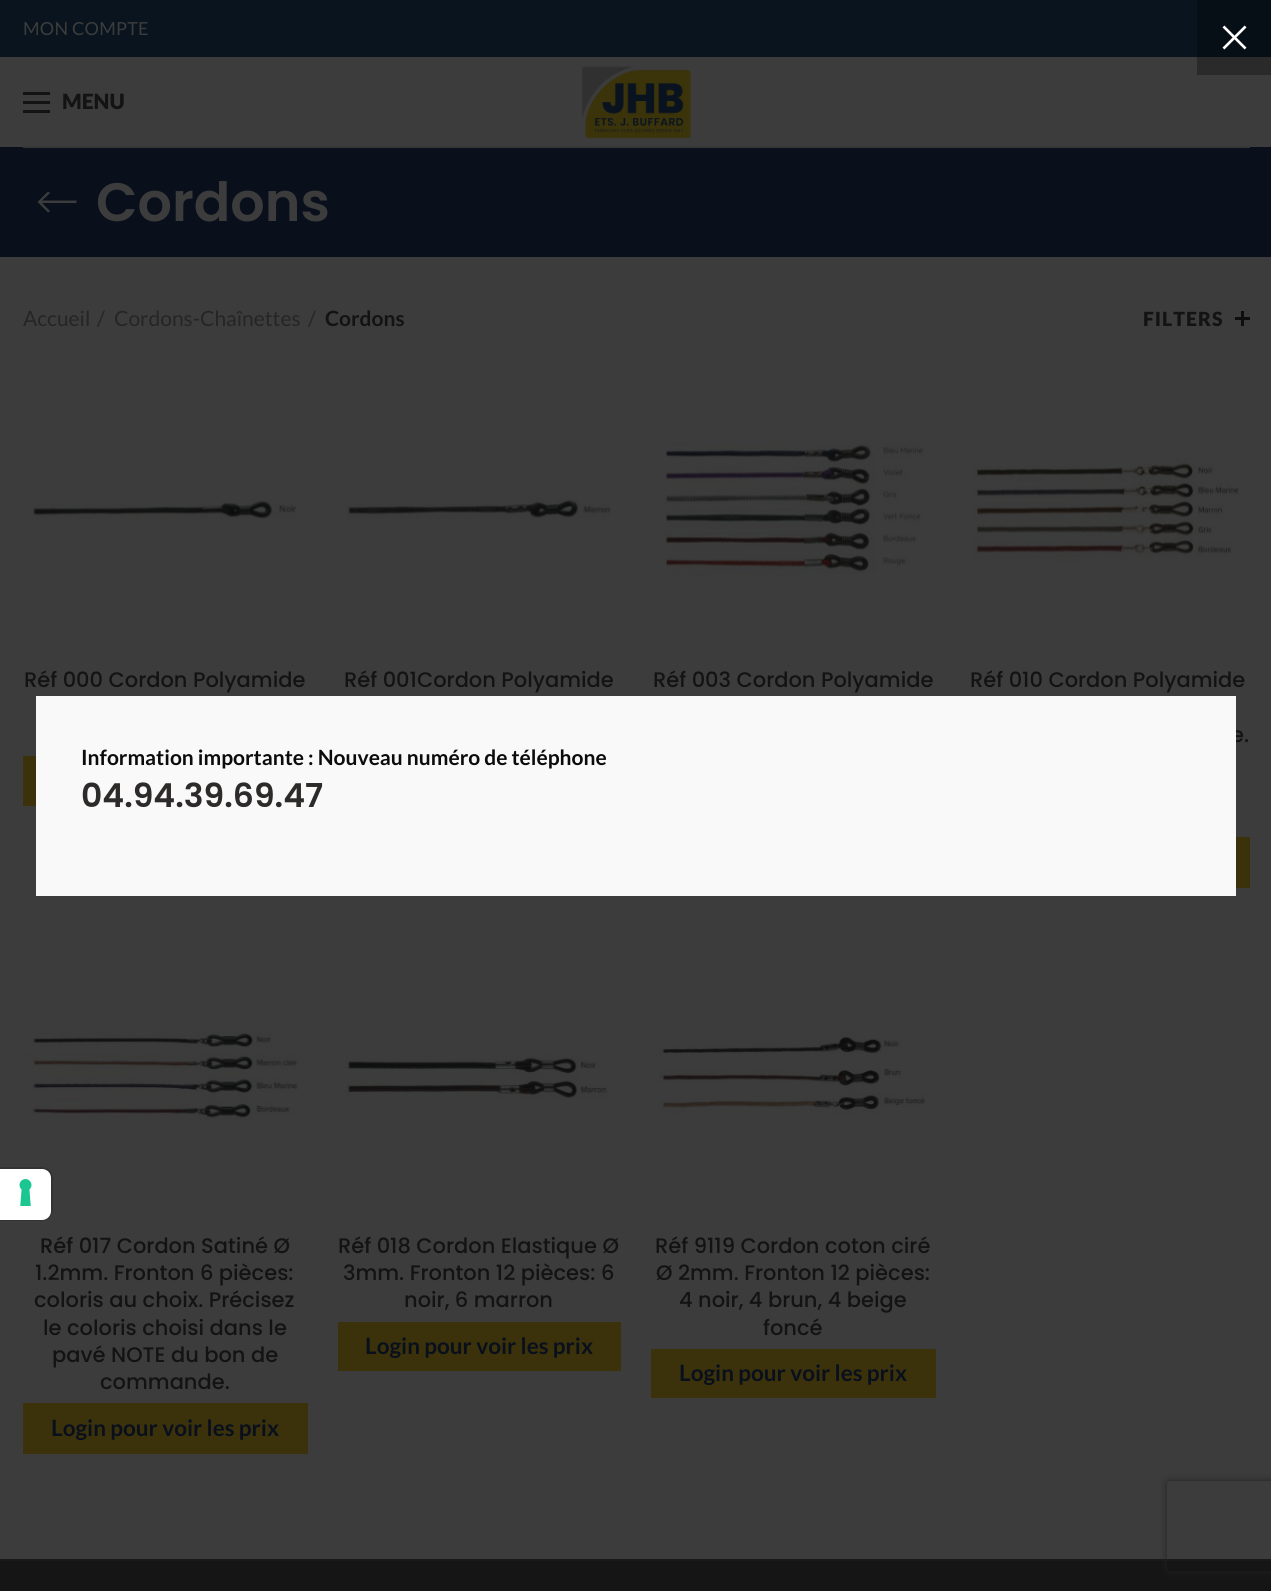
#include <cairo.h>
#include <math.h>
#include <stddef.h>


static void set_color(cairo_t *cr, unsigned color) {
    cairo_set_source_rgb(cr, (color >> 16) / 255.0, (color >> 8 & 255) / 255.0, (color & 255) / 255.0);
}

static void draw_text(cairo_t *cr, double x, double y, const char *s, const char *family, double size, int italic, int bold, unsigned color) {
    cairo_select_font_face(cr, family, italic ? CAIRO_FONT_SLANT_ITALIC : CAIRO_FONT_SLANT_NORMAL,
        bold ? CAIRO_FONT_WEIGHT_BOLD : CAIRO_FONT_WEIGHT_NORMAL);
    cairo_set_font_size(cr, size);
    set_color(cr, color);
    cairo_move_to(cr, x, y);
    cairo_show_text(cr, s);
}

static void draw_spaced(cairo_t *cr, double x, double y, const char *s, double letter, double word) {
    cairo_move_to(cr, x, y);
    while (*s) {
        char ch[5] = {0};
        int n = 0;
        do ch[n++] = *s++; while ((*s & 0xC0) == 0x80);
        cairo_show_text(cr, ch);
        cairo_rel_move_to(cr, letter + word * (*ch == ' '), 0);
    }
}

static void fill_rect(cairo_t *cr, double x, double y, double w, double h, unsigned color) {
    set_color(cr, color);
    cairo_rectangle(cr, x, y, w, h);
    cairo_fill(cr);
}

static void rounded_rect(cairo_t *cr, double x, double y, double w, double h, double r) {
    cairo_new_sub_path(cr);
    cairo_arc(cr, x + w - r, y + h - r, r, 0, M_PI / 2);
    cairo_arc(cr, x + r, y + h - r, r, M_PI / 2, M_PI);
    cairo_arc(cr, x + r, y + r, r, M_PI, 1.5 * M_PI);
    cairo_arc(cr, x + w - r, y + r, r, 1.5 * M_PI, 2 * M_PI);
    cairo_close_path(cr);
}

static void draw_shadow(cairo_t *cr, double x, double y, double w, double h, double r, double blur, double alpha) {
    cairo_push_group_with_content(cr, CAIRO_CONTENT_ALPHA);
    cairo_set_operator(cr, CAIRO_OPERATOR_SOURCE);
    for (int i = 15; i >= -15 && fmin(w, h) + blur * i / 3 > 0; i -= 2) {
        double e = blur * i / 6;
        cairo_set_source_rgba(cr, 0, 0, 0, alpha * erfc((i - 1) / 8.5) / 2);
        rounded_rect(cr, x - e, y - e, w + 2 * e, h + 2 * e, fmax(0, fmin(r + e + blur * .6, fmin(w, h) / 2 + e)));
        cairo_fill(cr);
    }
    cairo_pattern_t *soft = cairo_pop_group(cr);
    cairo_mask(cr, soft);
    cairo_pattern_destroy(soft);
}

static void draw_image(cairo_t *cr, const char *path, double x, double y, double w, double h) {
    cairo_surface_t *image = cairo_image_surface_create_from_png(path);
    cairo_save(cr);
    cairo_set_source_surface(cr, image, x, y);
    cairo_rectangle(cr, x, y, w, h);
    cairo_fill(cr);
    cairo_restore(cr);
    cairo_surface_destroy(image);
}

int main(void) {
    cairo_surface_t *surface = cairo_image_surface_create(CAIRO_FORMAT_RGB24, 1271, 1591);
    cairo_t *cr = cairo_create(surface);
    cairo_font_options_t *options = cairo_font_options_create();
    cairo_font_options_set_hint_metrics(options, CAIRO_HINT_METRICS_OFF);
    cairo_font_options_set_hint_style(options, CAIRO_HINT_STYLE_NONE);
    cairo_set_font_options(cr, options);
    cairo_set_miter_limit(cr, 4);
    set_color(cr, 0x3C3C3C);
    cairo_paint(cr);
    fill_rect(cr, 1197, 57, 74, 18, 0x2A2A2A);
    fill_rect(cr, 0, 0, 1197, 57, 0x09141F);
    fill_rect(cr, 1197, 0, 74, 57, 0x060E16);
    cairo_select_font_face(cr, "Lato", CAIRO_FONT_SLANT_NORMAL, CAIRO_FONT_WEIGHT_NORMAL);
    cairo_set_font_size(cr, 18);
    set_color(cr, 0x3C3C3C);
    draw_spaced(cr, 23, 35, "MON COMPTE", 0.25, 0);
    fill_rect(cr, 0, 147, 1271, 110, 0x09101C);
    fill_rect(cr, 23, 146, 1227, 2, 0x373737);
    fill_rect(cr, 23, 101, 27, 3, 0x131313);
    fill_rect(cr, 23, 92, 27, 3, 0x131313);
    fill_rect(cr, 23, 110, 27, 3, 0x131313);
    draw_text(cr, 62, 109, "MENU", "Lato Black", 21, 0, 0, 0x131313);
    draw_image(cr, "assets/img1.png", 581, 66, 110, 73);
    set_color(cr, 0x3C3C3C);
    cairo_new_path(cr);
    cairo_move_to(cr, 76.5, 200.5);
    cairo_line_to(cr, 76.5, 203);
    cairo_line_to(cr, 42, 203);
    cairo_line_to(cr, 50, 211);
    cairo_line_to(cr, 48, 212.5);
    cairo_line_to(cr, 37.5, 202);
    cairo_line_to(cr, 48, 191.5);
    cairo_line_to(cr, 50, 193);
    cairo_line_to(cr, 42, 200.5);
    cairo_close_path(cr);
    cairo_fill(cr);
    draw_text(cr, 96, 221, "Cordons", "Poppins SemiBold", 54, 0, 0, 0x3C3C3C);
    draw_text(cr, 23, 326, "Accueil", "Lato", 21, 0, 0, 0x252525);
    draw_text(cr, 97, 326, "/", "Lato", 21, 0, 0, 0x252525);
    draw_text(cr, 114, 326, "Cordons-Chaînettes", "Lato", 21, 0, 0, 0x252525);
    draw_text(cr, 308, 326, "/", "Lato", 21, 0, 0, 0x252525);
    draw_text(cr, 325, 326, "Cordons", "Lato", 21, 0, 1, 0x131313);
    cairo_select_font_face(cr, "Lato Black", CAIRO_FONT_SLANT_NORMAL, CAIRO_FONT_WEIGHT_NORMAL);
    cairo_set_font_size(cr, 19.5);
    draw_spaced(cr, 1143, 326, "FILTERS", 1, 0);
    fill_rect(cr, 1241, 311, 3, 15, 0x0E0E0E);
    fill_rect(cr, 1235, 317, 15, 3, 0x0E0E0E);
    draw_image(cr, "assets/img2.png", 32, 500, 265, 19);
    draw_text(cr, 24, 687, "Réf 000 Cordon Polyamide", "Poppins Medium", 21, 0, 0, 0x131313);
    fill_rect(cr, 23, 756, 13, 50, 0x3B320B);
    draw_image(cr, "assets/img3.png", 347, 498, 264, 21);
    draw_text(cr, 344, 687, "Réf 001Cordon Polyamide", "Poppins Medium", 21, 0, 0, 0x131313);
    draw_image(cr, "assets/img4.png", 665, 443, 259, 136);
    draw_text(cr, 653, 687, "Réf 003 Cordon Polyamide", "Poppins Medium", 21, 0, 0, 0x131313);
    draw_image(cr, "assets/img5.png", 966, 458, 273, 106);
    draw_text(cr, 970, 687, "Réf 010 Cordon Polyamide", "Poppins Medium", 21, 0, 0, 0x131313);
    draw_text(cr, 1231, 742, "e.", "Poppins Medium", 21, 0, 0, 0x131313);
    fill_rect(cr, 1236, 837, 14, 51, 0x3B320B);
    draw_image(cr, "assets/img6.png", 22, 1031, 277, 90);
    draw_text(cr, 40, 1253, "Réf 017 Cordon Satiné Ø", "Poppins Medium", 21, 0, 0, 0x131313);
    draw_text(cr, 35, 1280, "1.2mm. Fronton 6 pièces:", "Poppins Medium", 21, 0, 0, 0x131313);
    draw_text(cr, 34, 1307, "coloris au choix. Précisez", "Poppins Medium", 21, 0, 0, 0x131313);
    draw_text(cr, 43, 1335, "le coloris choisi dans le", "Poppins Medium", 21, 0, 0, 0x131313);
    draw_text(cr, 52, 1362, "pavé NOTE du bon de", "Poppins Medium", 21, 0, 0, 0x131313);
    draw_text(cr, 100, 1389, "commande.", "Poppins Medium", 21, 0, 0, 0x131313);
    fill_rect(cr, 23, 1403, 285, 51, 0x3B320B);
    draw_text(cr, 51, 1436, "Login pour voir les prix", "Lato", 22.5, 0, 1, 0x09101C);
    draw_image(cr, "assets/img7.png", 345, 1054, 264, 45);
    draw_text(cr, 338, 1253, "Réf 018 Cordon Elastique Ø", "Poppins Medium", 21, 0, 0, 0x131313);
    draw_text(cr, 343, 1280, "3mm. Fronton 12 pièces: 6", "Poppins Medium", 21, 0, 0, 0x131313);
    draw_text(cr, 404, 1307, "noir, 6 marron", "Poppins Medium", 21, 0, 0, 0x131313);
    fill_rect(cr, 338, 1322, 283, 49, 0x3B320B);
    draw_text(cr, 365, 1354, "Login pour voir les prix", "Lato", 22.5, 0, 1, 0x09101C);
    draw_image(cr, "assets/img8.png", 657, 1032, 268, 83);
    draw_text(cr, 655, 1253, "Réf 9119 Cordon coton ciré", "Poppins Medium", 21, 0, 0, 0x131313);
    draw_text(cr, 656, 1280, "Ø 2mm. Fronton 12 pièces:", "Poppins Medium", 21, 0, 0, 0x131313);
    draw_text(cr, 679, 1307, "4 noir, 4 brun, 4 beige", "Poppins Medium", 21, 0, 0, 0x131313);
    draw_text(cr, 763, 1335, "foncé", "Poppins Medium", 21, 0, 0, 0x131313);
    fill_rect(cr, 651, 1349, 285, 49, 0x3B320B);
    draw_text(cr, 679, 1381, "Login pour voir les prix", "Lato", 22.5, 0, 1, 0x09101C);
    fill_rect(cr, 0, 1561, 1271, 30, 0x151515);
    fill_rect(cr, 0, 1559, 1271, 2, 0x191919);
    fill_rect(cr, 36, 696, 1200, 200, 0xF9F9F9);
    draw_image(cr, "assets/img9.png", 1222, 25, 25, 25);
    draw_text(cr, 81, 765, "Information importante : Nouveau numéro de téléphone", "Lato", 21, 0, 1, 0x0C0C0C);
    draw_text(cr, 81, 807, "04.94.39.69.47", "Poppins SemiBold", 33, 0, 0, 0x2D2A2A);
    cairo_new_path(cr);
    cairo_move_to(cr, 0, 1168);
    cairo_line_to(cr, 42, 1168);
    cairo_curve_to(cr, 47.5, 1168, 52, 1172.5, 52, 1178);
    cairo_line_to(cr, 52, 1210);
    cairo_curve_to(cr, 52, 1215.5, 47.5, 1220, 42, 1220);
    cairo_line_to(cr, 0, 1220);
    cairo_close_path(cr);
    set_color(cr, 0x333333);
    cairo_stroke(cr);
    set_color(cr, 0xFFFFFF);
    cairo_new_path(cr);
    cairo_move_to(cr, 0, 1169);
    cairo_line_to(cr, 42, 1169);
    cairo_curve_to(cr, 47, 1169, 51, 1173, 51, 1178);
    cairo_line_to(cr, 51, 1211);
    cairo_curve_to(cr, 51, 1216, 47, 1220, 42, 1220);
    cairo_line_to(cr, 0, 1220);
    cairo_close_path(cr);
    cairo_fill(cr);
    draw_image(cr, "assets/img10.png", 19, 1179, 13, 27);
    cairo_save(cr);
    cairo_set_fill_rule(cr, CAIRO_FILL_RULE_EVEN_ODD);
    cairo_new_path(cr);
    cairo_move_to(cr, 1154, 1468);
    cairo_line_to(cr, 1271, 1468);
    cairo_line_to(cr, 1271, 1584);
    cairo_line_to(cr, 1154, 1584);
    cairo_close_path(cr);
    cairo_move_to(cr, 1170, 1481);
    cairo_line_to(cr, 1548, 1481);
    cairo_curve_to(cr, 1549.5, 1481, 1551, 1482.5, 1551, 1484);
    cairo_line_to(cr, 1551, 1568);
    cairo_curve_to(cr, 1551, 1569.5, 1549.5, 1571, 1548, 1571);
    cairo_line_to(cr, 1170, 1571);
    cairo_curve_to(cr, 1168.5, 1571, 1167, 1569.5, 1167, 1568);
    cairo_line_to(cr, 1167, 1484);
    cairo_curve_to(cr, 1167, 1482.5, 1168.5, 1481, 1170, 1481);
    cairo_close_path(cr);
    cairo_clip(cr);
    set_color(cr, 0x222222);
    draw_shadow(cr, 1167, 1481, 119, 90, 3, 4, 1);
    cairo_restore(cr);
    cairo_surface_write_to_png(surface, "output.png");
    cairo_font_options_destroy(options);
    cairo_destroy(cr);
    cairo_surface_destroy(surface);
    return 0;
}
